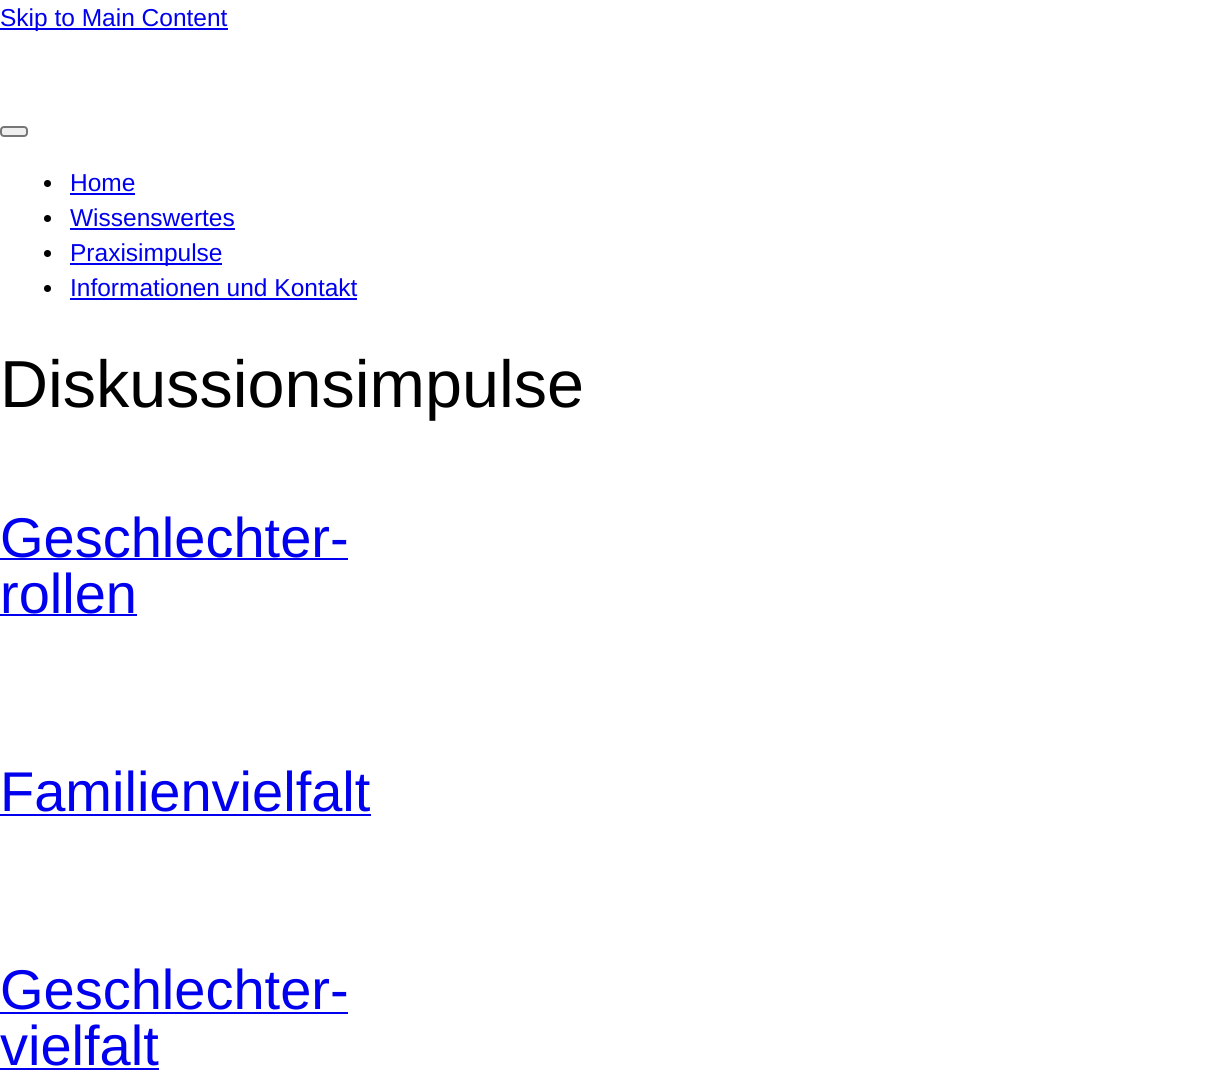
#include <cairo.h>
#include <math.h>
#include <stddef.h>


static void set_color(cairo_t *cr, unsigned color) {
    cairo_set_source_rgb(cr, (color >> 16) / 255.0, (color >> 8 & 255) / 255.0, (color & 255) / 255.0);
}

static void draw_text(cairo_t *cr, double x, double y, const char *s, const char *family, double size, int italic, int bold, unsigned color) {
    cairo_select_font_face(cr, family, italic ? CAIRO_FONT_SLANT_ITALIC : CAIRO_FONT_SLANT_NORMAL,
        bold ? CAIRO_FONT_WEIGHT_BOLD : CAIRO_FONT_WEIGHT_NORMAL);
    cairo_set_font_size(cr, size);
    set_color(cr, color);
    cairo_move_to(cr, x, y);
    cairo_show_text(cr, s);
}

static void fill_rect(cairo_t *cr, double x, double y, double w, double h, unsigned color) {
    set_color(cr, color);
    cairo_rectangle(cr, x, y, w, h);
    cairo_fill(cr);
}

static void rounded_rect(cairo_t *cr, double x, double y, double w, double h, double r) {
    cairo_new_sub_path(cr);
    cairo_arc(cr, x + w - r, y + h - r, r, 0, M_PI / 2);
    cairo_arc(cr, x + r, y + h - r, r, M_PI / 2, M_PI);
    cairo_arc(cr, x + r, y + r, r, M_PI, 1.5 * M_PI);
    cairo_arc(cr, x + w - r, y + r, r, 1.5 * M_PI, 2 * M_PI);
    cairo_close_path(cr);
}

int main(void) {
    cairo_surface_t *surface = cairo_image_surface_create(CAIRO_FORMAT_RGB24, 1217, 1089);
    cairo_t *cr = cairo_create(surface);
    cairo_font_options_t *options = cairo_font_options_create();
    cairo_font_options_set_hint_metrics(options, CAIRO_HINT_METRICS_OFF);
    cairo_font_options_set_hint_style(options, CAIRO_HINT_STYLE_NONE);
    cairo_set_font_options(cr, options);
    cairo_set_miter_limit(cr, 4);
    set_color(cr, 0xFFFFFF);
    cairo_paint(cr);
    fill_rect(cr, 0, 28, 228, 2, 0x0000EE);
    draw_text(cr, 0, 26, "Skip to Main Content", "Liberation Sans", 24.5, 0, 0, 0x0000EE);
    set_color(cr, 0xEFEFEF);
    rounded_rect(cr, 1, 127, 26, 9, 3);
    cairo_fill_preserve(cr);
    set_color(cr, 0x767676);
    cairo_stroke(cr);
    set_color(cr, 0x000000);
    cairo_arc(cr, 47.5, 183.5, 3.5, 0, 2 * M_PI);
    cairo_fill(cr);
    draw_text(cr, 70, 191, "Home", "Liberation Sans", 24.5, 0, 0, 0x0000EE);
    fill_rect(cr, 70, 193, 65, 2, 0x0000EE);
    set_color(cr, 0x000000);
    cairo_new_path(cr);
    cairo_arc(cr, 47.5, 218.5, 3.5, 0, 2 * M_PI);
    cairo_fill(cr);
    draw_text(cr, 70, 226, "Wissenswertes", "Liberation Sans", 24.5, 0, 0, 0x0000EE);
    fill_rect(cr, 70, 228, 165, 2, 0x0000EE);
    set_color(cr, 0x000000);
    cairo_new_path(cr);
    cairo_arc(cr, 47.5, 253.5, 3.5, 0, 2 * M_PI);
    cairo_fill(cr);
    fill_rect(cr, 70, 263, 152, 2, 0x0000EE);
    draw_text(cr, 70, 261, "Praxisimpulse", "Liberation Sans", 24.5, 0, 0, 0x0000EE);
    set_color(cr, 0x000000);
    cairo_new_path(cr);
    cairo_arc(cr, 47.5, 288.5, 3.5, 0, 2 * M_PI);
    cairo_fill(cr);
    draw_text(cr, 70, 296, "Informationen und Kontakt", "Liberation Sans", 24.5, 0, 0, 0x0000EE);
    fill_rect(cr, 70, 298, 287, 2, 0x0000EE);
    draw_text(cr, 0, 407, "Diskussionsimpulse", "Liberation Sans", 66.5, 0, 0, 0x000000);
    draw_text(cr, 0, 557, "Geschlechter-", "Liberation Sans", 56, 0, 0, 0x0000EE);
    fill_rect(cr, 0, 558, 348, 2, 0x0000EE);
    draw_text(cr, 0, 613, "rollen", "Liberation Sans", 56, 0, 0, 0x0000EE);
    fill_rect(cr, 0, 614, 137, 2, 0x0000EE);
    draw_text(cr, 0, 811, "Familienvielfalt", "Liberation Sans", 56, 0, 0, 0x0000EE);
    fill_rect(cr, 0, 814, 371, 2, 0x0000EE);
    draw_text(cr, 0, 1009, "Geschlechter-", "Liberation Sans", 56, 0, 0, 0x0000EE);
    fill_rect(cr, 0, 1012, 348, 2, 0x0000EE);
    draw_text(cr, 0, 1065, "vielfalt", "Liberation Sans", 56, 0, 0, 0x0000EE);
    fill_rect(cr, 0, 1068, 159, 2, 0x0000EE);
    cairo_surface_write_to_png(surface, "output.png");
    cairo_font_options_destroy(options);
    cairo_destroy(cr);
    cairo_surface_destroy(surface);
    return 0;
}
